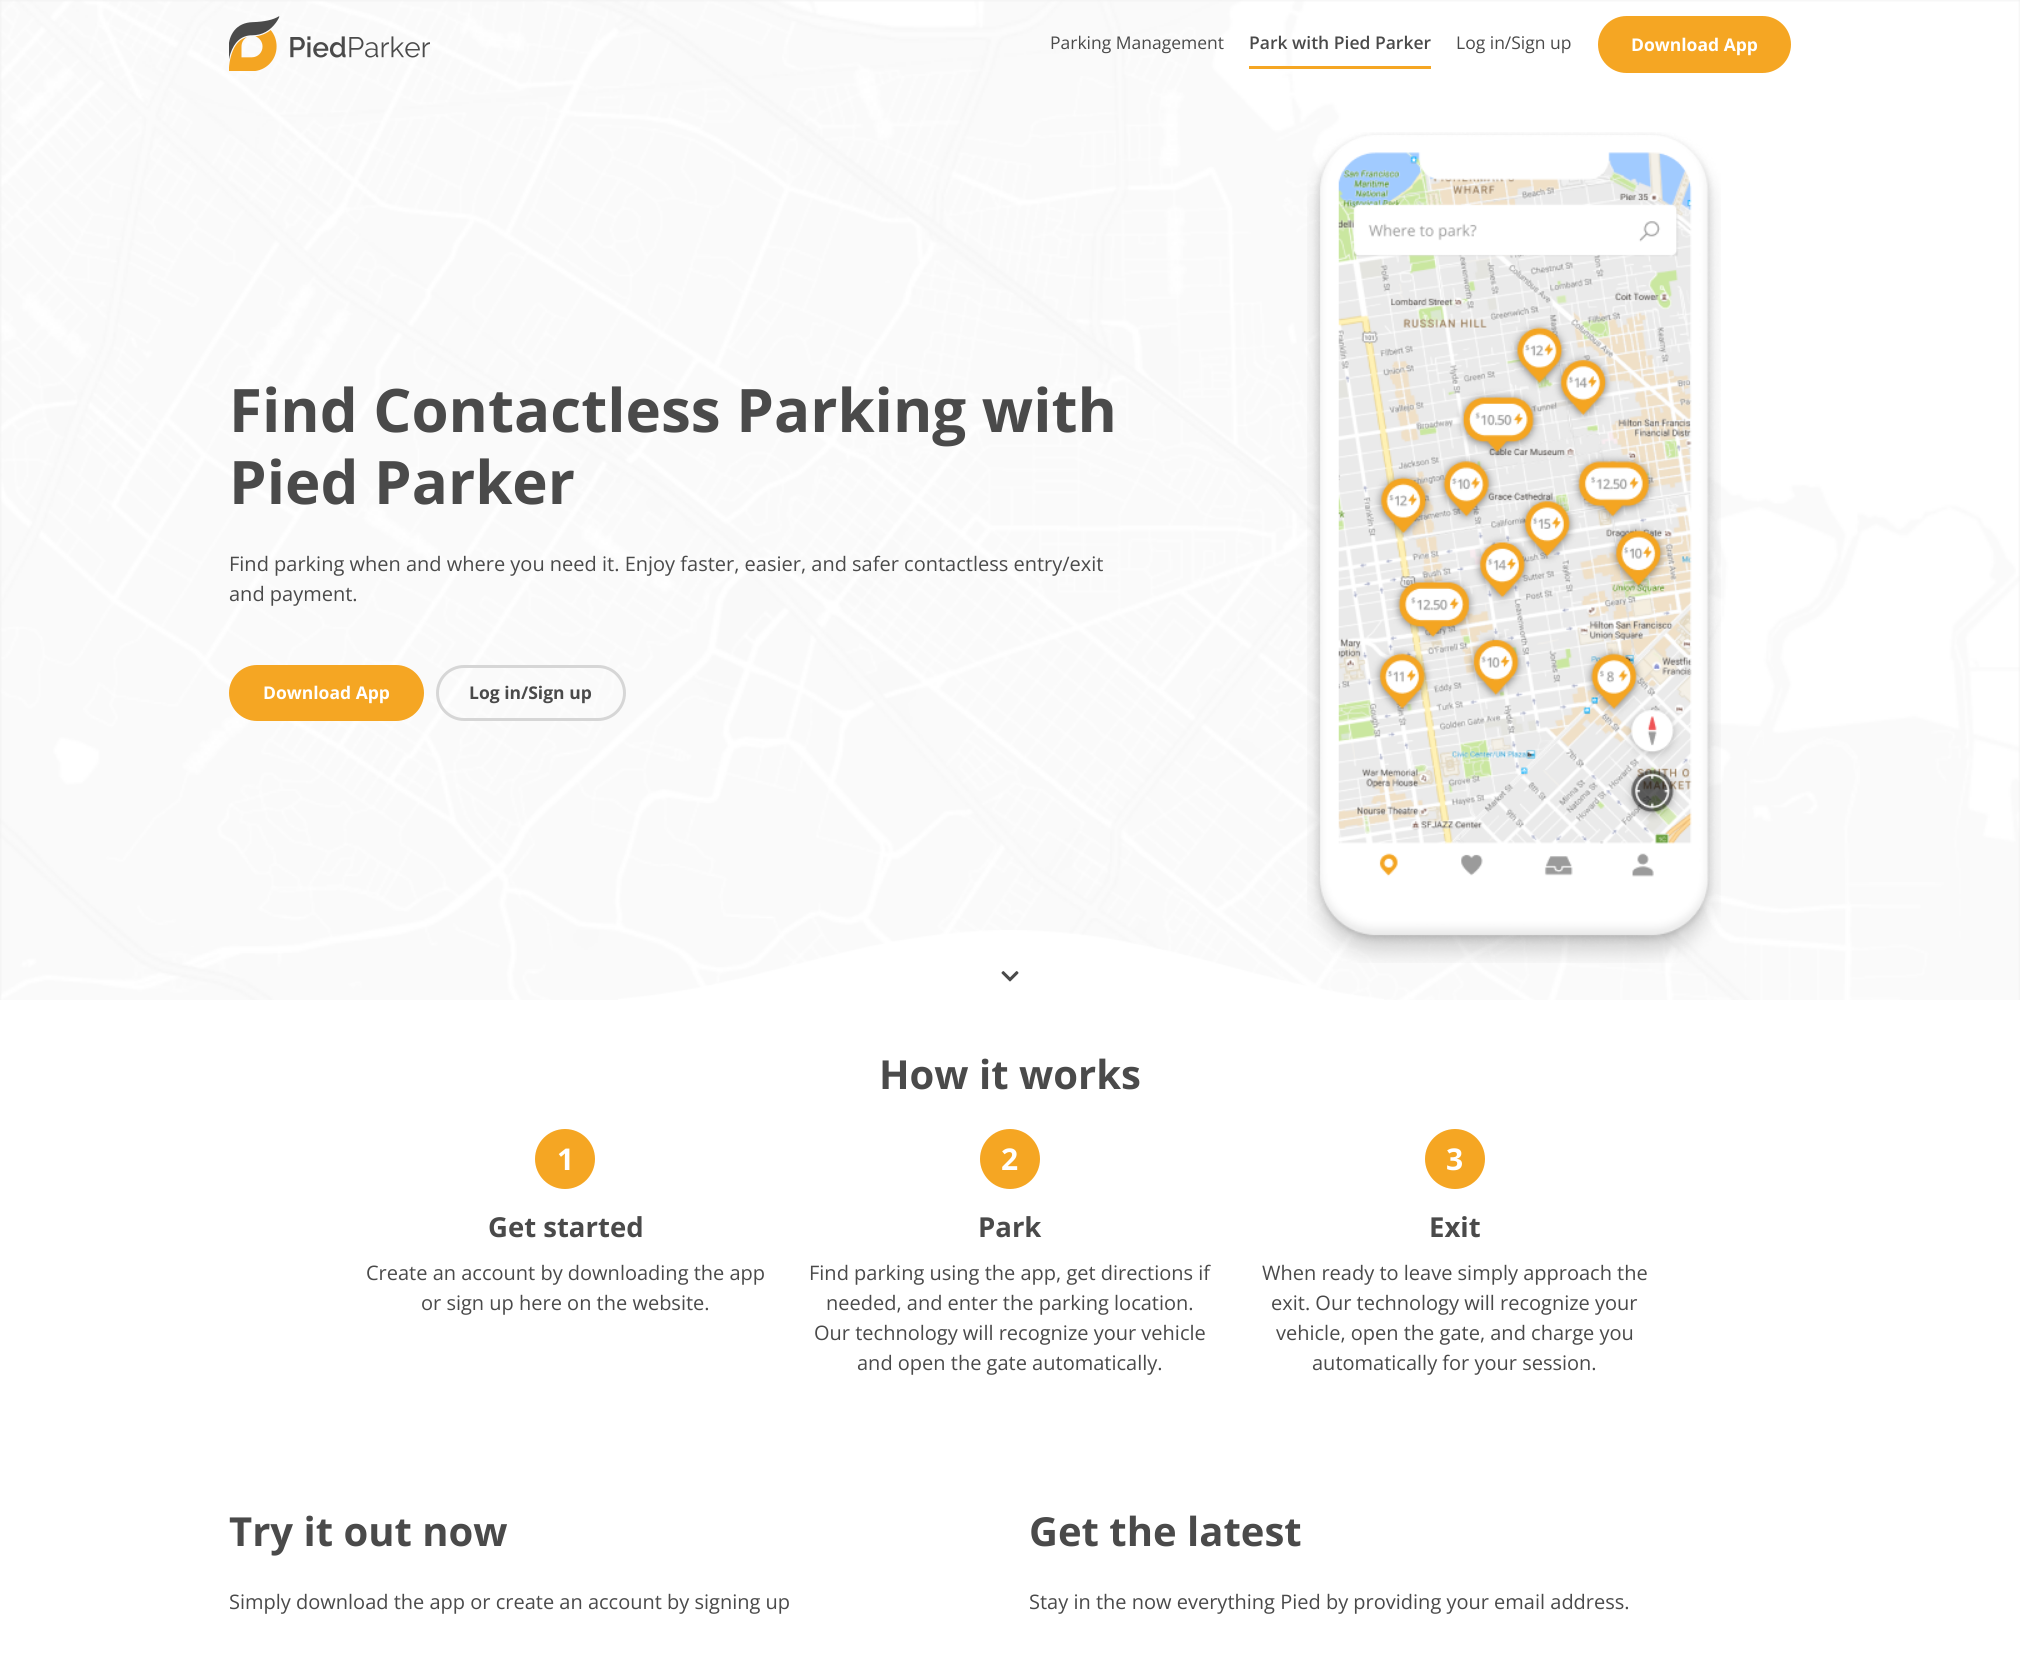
#include <cairo.h>
#include <math.h>
#include <stddef.h>


static void set_color(cairo_t *cr, unsigned color) {
    cairo_set_source_rgb(cr, (color >> 16) / 255.0, (color >> 8 & 255) / 255.0, (color & 255) / 255.0);
}

static void draw_text(cairo_t *cr, double x, double y, const char *s, const char *family, double size, int italic, int bold, unsigned color) {
    cairo_select_font_face(cr, family, italic ? CAIRO_FONT_SLANT_ITALIC : CAIRO_FONT_SLANT_NORMAL,
        bold ? CAIRO_FONT_WEIGHT_BOLD : CAIRO_FONT_WEIGHT_NORMAL);
    cairo_set_font_size(cr, size);
    set_color(cr, color);
    cairo_move_to(cr, x, y);
    cairo_show_text(cr, s);
}

static void fill_rect(cairo_t *cr, double x, double y, double w, double h, unsigned color) {
    set_color(cr, color);
    cairo_rectangle(cr, x, y, w, h);
    cairo_fill(cr);
}

static void rounded_rect(cairo_t *cr, double x, double y, double w, double h, double r) {
    cairo_new_sub_path(cr);
    cairo_arc(cr, x + w - r, y + h - r, r, 0, M_PI / 2);
    cairo_arc(cr, x + r, y + h - r, r, M_PI / 2, M_PI);
    cairo_arc(cr, x + r, y + r, r, M_PI, 1.5 * M_PI);
    cairo_arc(cr, x + w - r, y + r, r, 1.5 * M_PI, 2 * M_PI);
    cairo_close_path(cr);
}

static void draw_image(cairo_t *cr, const char *path, double x, double y, double w, double h) {
    cairo_surface_t *image = cairo_image_surface_create_from_png(path);
    cairo_save(cr);
    cairo_set_source_surface(cr, image, x, y);
    cairo_rectangle(cr, x, y, w, h);
    cairo_fill(cr);
    cairo_restore(cr);
    cairo_surface_destroy(image);
}

int main(void) {
    cairo_surface_t *surface = cairo_image_surface_create(CAIRO_FORMAT_RGB24, 2020, 1654);
    cairo_t *cr = cairo_create(surface);
    cairo_font_options_t *options = cairo_font_options_create();
    cairo_font_options_set_hint_metrics(options, CAIRO_HINT_METRICS_OFF);
    cairo_font_options_set_hint_style(options, CAIRO_HINT_STYLE_NONE);
    cairo_set_font_options(cr, options);
    cairo_set_miter_limit(cr, 4);
    set_color(cr, 0xFFFFFF);
    cairo_paint(cr);
    draw_image(cr, "assets/img2.png", 0, 0, 2020, 1000);
    draw_image(cr, "assets/img1.png", 229, 16, 201, 55);
    draw_text(cr, 1050, 49, "Parking Management", "Open Sans", 17.5, 0, 0, 0x4A4A4A);
    fill_rect(cr, 1249, 66, 182, 3, 0xF5A623);
    draw_text(cr, 1249, 49, "Park with Pied Parker", "Open Sans SemiBold", 17.5, 0, 0, 0x4A4A4A);
    draw_text(cr, 1456, 49, "Log in/Sign up", "Open Sans", 17.5, 0, 0, 0x4A4A4A);
    set_color(cr, 0xF5A623);
    rounded_rect(cr, 1599.5, 17.5, 190, 54, 27);
    cairo_fill_preserve(cr);
    cairo_set_line_width(cr, 3);
    cairo_stroke(cr);
    draw_text(cr, 1631, 51, "Download App", "Open Sans", 17.5, 0, 1, 0xFFFFFF);
    draw_text(cr, 229, 432, "Find Contactless Parking with", "Open Sans", 60, 0, 1, 0x4A4A4A);
    draw_text(cr, 229, 504, "Pied Parker", "Open Sans", 60, 0, 1, 0x4A4A4A);
    draw_text(cr, 229, 571, "Find parking when and where you need it. Enjoy faster, easier, and safer contactless entry/exit", "Open Sans", 20, 0, 0, 0x4A4A4A);
    draw_text(cr, 229, 601, "and payment.", "Open Sans", 20, 0, 0, 0x4A4A4A);
    set_color(cr, 0xF5A623);
    rounded_rect(cr, 230.5, 666.5, 192, 53, 26.5);
    cairo_fill_preserve(cr);
    cairo_stroke(cr);
    draw_text(cr, 263, 699, "Download App", "Open Sans", 17.5, 0, 1, 0xFFFFFF);
    rounded_rect(cr, 437.5, 666.5, 187, 53, 26.5);
    set_color(cr, 0xD6D6D6);
    cairo_stroke(cr);
    draw_text(cr, 469, 699, "Log in/Sign up", "Open Sans", 17.5, 0, 1, 0x4A4A4A);
    draw_image(cr, "assets/img3.png", 1307, 132, 414, 831);
    draw_image(cr, "assets/img4.png", 618, 930, 766, 70);
    draw_image(cr, "assets/img5.png", 1001, 971, 18, 11);
    draw_text(cr, 879, 1089, "How it works", "Open Sans", 40, 0, 1, 0x4A4A4A);
    set_color(cr, 0xF5A623);
    cairo_new_path(cr);
    cairo_arc(cr, 565, 1159, 30, 0, 2 * M_PI);
    cairo_fill(cr);
    draw_text(cr, 557, 1170, "1", "Open Sans", 30, 0, 1, 0xFFFFFF);
    draw_text(cr, 488, 1237, "Get started", "Open Sans", 27.5, 0, 1, 0x4A4A4A);
    draw_text(cr, 366, 1280, "Create an account by downloading the app", "Open Sans", 20, 0, 0, 0x4A4A4A);
    draw_text(cr, 421, 1310, "or sign up here on the website.", "Open Sans", 20, 0, 0, 0x4A4A4A);
    set_color(cr, 0xF5A623);
    cairo_new_path(cr);
    cairo_arc(cr, 1010, 1159, 30, 0, 2 * M_PI);
    cairo_fill(cr);
    draw_text(cr, 1001, 1170, "2", "Open Sans", 30, 0, 1, 0xFFFFFF);
    draw_text(cr, 978, 1237, "Park", "Open Sans", 27.5, 0, 1, 0x4A4A4A);
    draw_text(cr, 809, 1280, "Find parking using the app, get directions if", "Open Sans", 20, 0, 0, 0x4A4A4A);
    draw_text(cr, 826, 1310, "needed, and enter the parking location.", "Open Sans", 20, 0, 0, 0x4A4A4A);
    draw_text(cr, 814, 1340, "Our technology will recognize your vehicle", "Open Sans", 20, 0, 0, 0x4A4A4A);
    draw_text(cr, 857, 1370, "and open the gate automatically.", "Open Sans", 20, 0, 0, 0x4A4A4A);
    set_color(cr, 0xF5A623);
    cairo_new_path(cr);
    cairo_arc(cr, 1455, 1159, 30, 0, 2 * M_PI);
    cairo_fill(cr);
    draw_text(cr, 1446, 1170, "3", "Open Sans", 30, 0, 1, 0xFFFFFF);
    draw_text(cr, 1429, 1237, "Exit", "Open Sans", 27.5, 0, 1, 0x4A4A4A);
    draw_text(cr, 1262, 1280, "When ready to leave simply approach the", "Open Sans", 20, 0, 0, 0x4A4A4A);
    draw_text(cr, 1271, 1310, "exit. Our technology will recognize your", "Open Sans", 20, 0, 0, 0x4A4A4A);
    draw_text(cr, 1276, 1340, "vehicle, open the gate, and charge you", "Open Sans", 20, 0, 0, 0x4A4A4A);
    draw_text(cr, 1312, 1370, "automatically for your session.", "Open Sans", 20, 0, 0, 0x4A4A4A);
    draw_text(cr, 229, 1546, "Try it out now", "Open Sans", 40, 0, 1, 0x4A4A4A);
    draw_text(cr, 229, 1609, "Simply download the app or create an account by signing up", "Open Sans", 20, 0, 0, 0x4A4A4A);
    draw_text(cr, 1029, 1546, "Get the latest", "Open Sans", 40, 0, 1, 0x4A4A4A);
    draw_text(cr, 1029, 1609, "Stay in the now everything Pied by providing your email address.", "Open Sans", 20, 0, 0, 0x4A4A4A);
    cairo_surface_write_to_png(surface, "output.png");
    cairo_font_options_destroy(options);
    cairo_destroy(cr);
    cairo_surface_destroy(surface);
    return 0;
}
